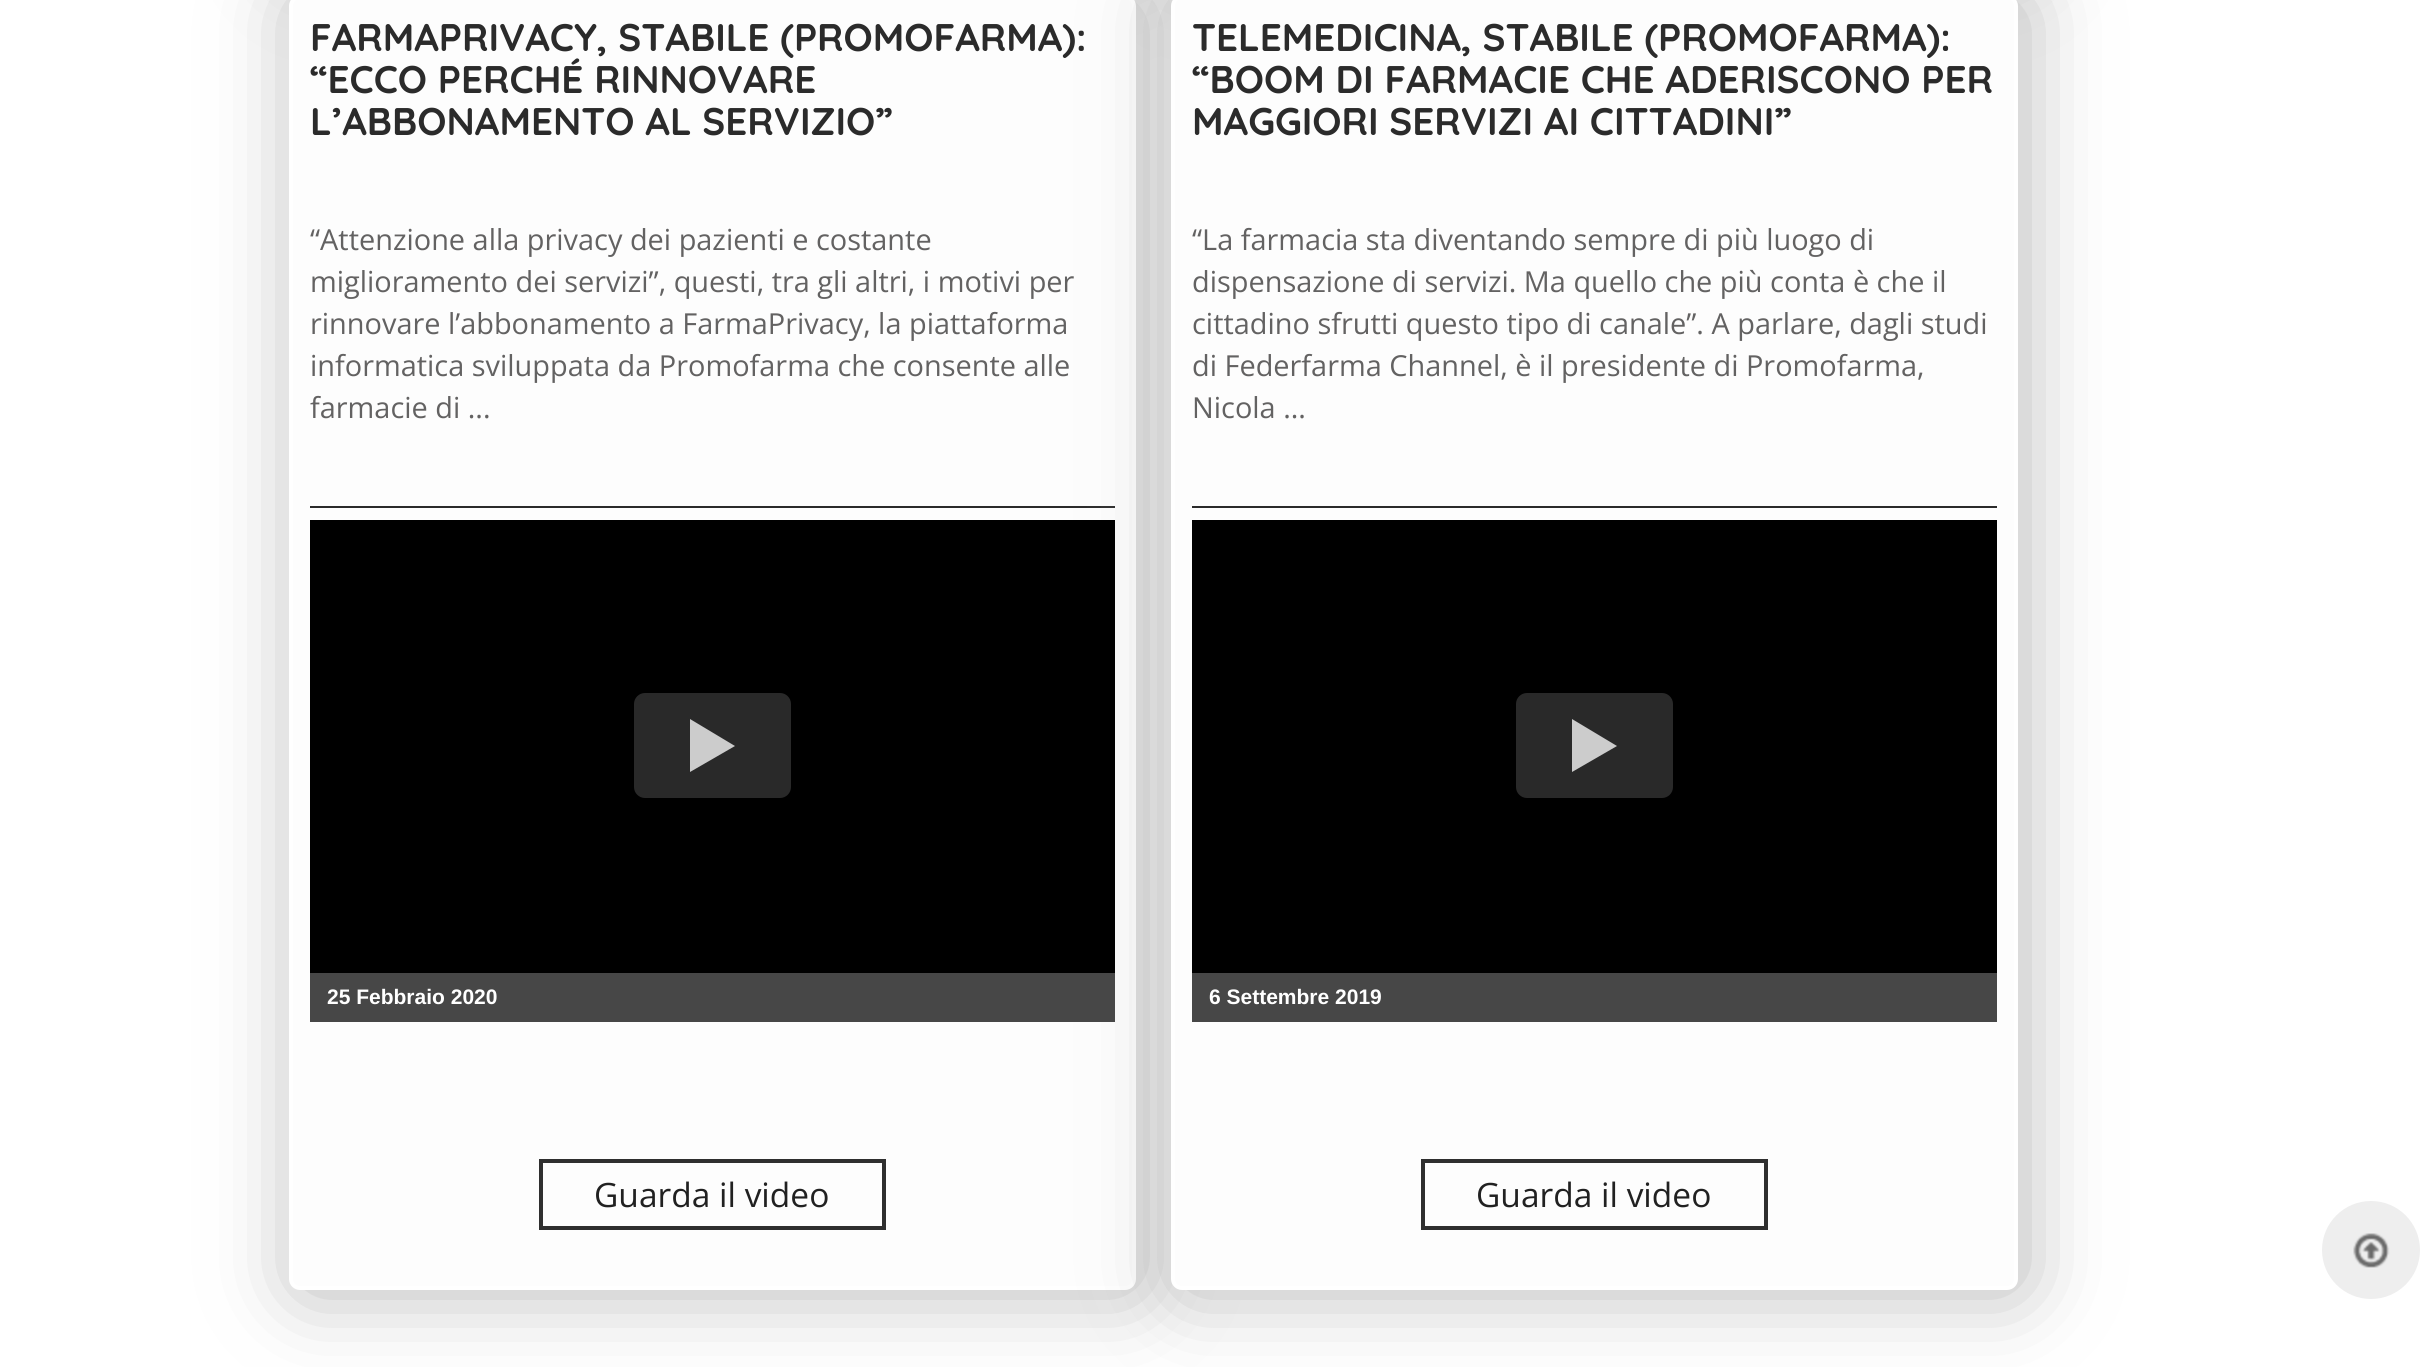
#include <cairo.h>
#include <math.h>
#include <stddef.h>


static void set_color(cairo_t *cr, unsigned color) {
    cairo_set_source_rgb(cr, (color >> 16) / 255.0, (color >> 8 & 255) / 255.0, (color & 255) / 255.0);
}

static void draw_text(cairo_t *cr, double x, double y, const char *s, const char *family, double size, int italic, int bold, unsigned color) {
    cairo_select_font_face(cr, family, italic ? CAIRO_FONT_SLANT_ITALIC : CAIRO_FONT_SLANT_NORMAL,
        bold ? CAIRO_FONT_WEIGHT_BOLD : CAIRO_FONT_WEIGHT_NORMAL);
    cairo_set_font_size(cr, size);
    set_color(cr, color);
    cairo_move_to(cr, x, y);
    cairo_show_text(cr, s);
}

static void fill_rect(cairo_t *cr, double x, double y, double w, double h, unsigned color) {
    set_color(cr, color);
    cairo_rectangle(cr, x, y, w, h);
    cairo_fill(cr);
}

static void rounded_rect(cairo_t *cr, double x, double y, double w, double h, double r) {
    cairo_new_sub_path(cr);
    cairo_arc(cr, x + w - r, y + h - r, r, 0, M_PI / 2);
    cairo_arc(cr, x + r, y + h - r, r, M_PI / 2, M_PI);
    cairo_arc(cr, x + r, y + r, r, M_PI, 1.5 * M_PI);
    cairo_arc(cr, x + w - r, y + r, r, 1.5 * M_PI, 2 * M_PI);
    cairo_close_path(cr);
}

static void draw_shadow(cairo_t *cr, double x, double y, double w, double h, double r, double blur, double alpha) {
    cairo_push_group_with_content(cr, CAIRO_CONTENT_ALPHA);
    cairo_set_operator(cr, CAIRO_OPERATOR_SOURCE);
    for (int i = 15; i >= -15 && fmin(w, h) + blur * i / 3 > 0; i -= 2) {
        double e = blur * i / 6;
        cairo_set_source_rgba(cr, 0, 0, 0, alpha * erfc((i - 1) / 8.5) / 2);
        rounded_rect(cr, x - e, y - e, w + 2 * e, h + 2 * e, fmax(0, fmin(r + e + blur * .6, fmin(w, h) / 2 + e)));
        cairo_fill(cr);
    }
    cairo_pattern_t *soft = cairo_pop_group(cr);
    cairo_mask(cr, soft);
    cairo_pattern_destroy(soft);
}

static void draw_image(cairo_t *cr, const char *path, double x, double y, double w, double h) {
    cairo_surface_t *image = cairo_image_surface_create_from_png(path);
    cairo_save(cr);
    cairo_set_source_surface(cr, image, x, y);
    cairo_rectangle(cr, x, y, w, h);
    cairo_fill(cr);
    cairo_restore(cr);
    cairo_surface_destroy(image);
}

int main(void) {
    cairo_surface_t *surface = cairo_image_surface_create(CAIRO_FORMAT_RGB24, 2424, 1367);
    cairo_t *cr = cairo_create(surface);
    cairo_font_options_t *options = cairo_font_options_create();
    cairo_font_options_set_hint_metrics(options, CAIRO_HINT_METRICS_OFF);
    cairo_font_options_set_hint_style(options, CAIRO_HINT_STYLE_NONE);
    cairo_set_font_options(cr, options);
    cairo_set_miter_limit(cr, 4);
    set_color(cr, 0xFFFFFF);
    cairo_paint(cr);
    set_color(cr, 0xB8B8B8);
    draw_shadow(cr, 296, -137, 847, 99, 11, 42, 1);
    draw_shadow(cr, 1178, -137, 847, 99, 11, 42, 1);
    draw_shadow(cr, 296, -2, 847, 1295, 11, 42, 1);
    set_color(cr, 0xFDFDFD);
    rounded_rect(cr, 291, -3, 843, 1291, 9);
    cairo_fill_preserve(cr);
    set_color(cr, 0xFFFFFF);
    cairo_set_line_width(cr, 4);
    cairo_stroke(cr);
    draw_text(cr, 310, 51, "FARMAPRIVACY, STABILE (PROMOFARMA):", "Quicksand", 38.5, 0, 1, 0x2B2B2B);
    draw_text(cr, 310, 93, "“ECCO PERCHÉ RINNOVARE", "Quicksand", 38.5, 0, 1, 0x2B2B2B);
    draw_text(cr, 310, 135, "L’ABBONAMENTO AL SERVIZIO”", "Quicksand", 38.5, 0, 1, 0x2B2B2B);
    draw_text(cr, 310, 250, "“Attenzione alla privacy dei pazienti e costante", "Open Sans", 28.9, 0, 0, 0x636262);
    draw_text(cr, 310, 292, "miglioramento dei servizi”, questi, tra gli altri, i motivi per", "Open Sans", 28.9, 0, 0, 0x636262);
    draw_text(cr, 310, 334, "rinnovare l’abbonamento a FarmaPrivacy, la piattaforma", "Open Sans", 28.9, 0, 0, 0x636262);
    draw_text(cr, 310, 376, "informatica sviluppata da Promofarma che consente alle", "Open Sans", 28.9, 0, 0, 0x636262);
    draw_text(cr, 310, 418, "farmacie di ...", "Open Sans", 28.9, 0, 0, 0x636262);
    fill_rect(cr, 310, 506, 805, 2, 0x2B2B2B);
    set_color(cr, 0xB8B8B8);
    draw_shadow(cr, 1178, -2, 847, 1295, 11, 42, 1);
    fill_rect(cr, 310, 520, 805, 453, 0x000000);
    set_color(cr, 0x292929);
    rounded_rect(cr, 634, 693, 157, 105, 11);
    cairo_fill(cr);
    set_color(cr, 0xCCCCCC);
    cairo_new_path(cr);
    cairo_move_to(cr, 690, 772);
    cairo_line_to(cr, 690, 719);
    cairo_line_to(cr, 735, 746);
    cairo_close_path(cr);
    cairo_fill(cr);
    fill_rect(cr, 310, 973, 805, 49, 0x474747);
    draw_text(cr, 327, 1004, "25 Febbraio 2020", "Liberation Sans", 21, 0, 1, 0xFFFFFF);
    cairo_rectangle(cr, 541, 1161, 343, 67);
    set_color(cr, 0x2F2F2F);
    cairo_stroke(cr);
    draw_text(cr, 594, 1207, "Guarda il video", "Open Sans", 33.5, 0, 0, 0x212121);
    set_color(cr, 0xFDFDFD);
    rounded_rect(cr, 1173, -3, 843, 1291, 9);
    cairo_fill_preserve(cr);
    set_color(cr, 0xFFFFFF);
    cairo_stroke(cr);
    draw_text(cr, 1192, 51, "TELEMEDICINA, STABILE (PROMOFARMA):", "Quicksand", 38.5, 0, 1, 0x2B2B2B);
    draw_text(cr, 1192, 93, "“BOOM DI FARMACIE CHE ADERISCONO PER", "Quicksand", 38.5, 0, 1, 0x2B2B2B);
    draw_text(cr, 1192, 135, "MAGGIORI SERVIZI AI CITTADINI”", "Quicksand", 38.5, 0, 1, 0x2B2B2B);
    draw_text(cr, 1192, 250, "“La farmacia sta diventando sempre di più luogo di", "Open Sans", 28.9, 0, 0, 0x636262);
    draw_text(cr, 1192, 292, "dispensazione di servizi. Ma quello che più conta è che il", "Open Sans", 28.9, 0, 0, 0x636262);
    draw_text(cr, 1192, 334, "cittadino sfrutti questo tipo di canale”. A parlare, dagli studi", "Open Sans", 28.9, 0, 0, 0x636262);
    draw_text(cr, 1192, 376, "di Federfarma Channel, è il presidente di Promofarma,", "Open Sans", 28.9, 0, 0, 0x636262);
    draw_text(cr, 1192, 418, "Nicola ...", "Open Sans", 28.9, 0, 0, 0x636262);
    fill_rect(cr, 1192, 506, 805, 2, 0x2B2B2B);
    fill_rect(cr, 1192, 520, 805, 453, 0x000000);
    set_color(cr, 0x292929);
    rounded_rect(cr, 1516, 693, 157, 105, 11);
    cairo_fill(cr);
    set_color(cr, 0xCCCCCC);
    cairo_new_path(cr);
    cairo_move_to(cr, 1572, 772);
    cairo_line_to(cr, 1572, 719);
    cairo_line_to(cr, 1617, 746);
    cairo_close_path(cr);
    cairo_fill(cr);
    fill_rect(cr, 1192, 973, 805, 49, 0x474747);
    draw_text(cr, 1209, 1004, "6 Settembre 2019", "Liberation Sans", 21, 0, 1, 0xFFFFFF);
    cairo_rectangle(cr, 1423, 1161, 343, 67);
    set_color(cr, 0x2F2F2F);
    cairo_stroke(cr);
    draw_text(cr, 1476, 1207, "Guarda il video", "Open Sans", 33.5, 0, 0, 0x212121);
    set_color(cr, 0xEEEEEE);
    cairo_new_path(cr);
    cairo_arc(cr, 2371, 1250, 49, 0, 2 * M_PI);
    cairo_fill(cr);
    draw_image(cr, "assets/img1.png", 2353, 1233, 37, 35);
    cairo_surface_write_to_png(surface, "output.png");
    cairo_font_options_destroy(options);
    cairo_destroy(cr);
    cairo_surface_destroy(surface);
    return 0;
}
